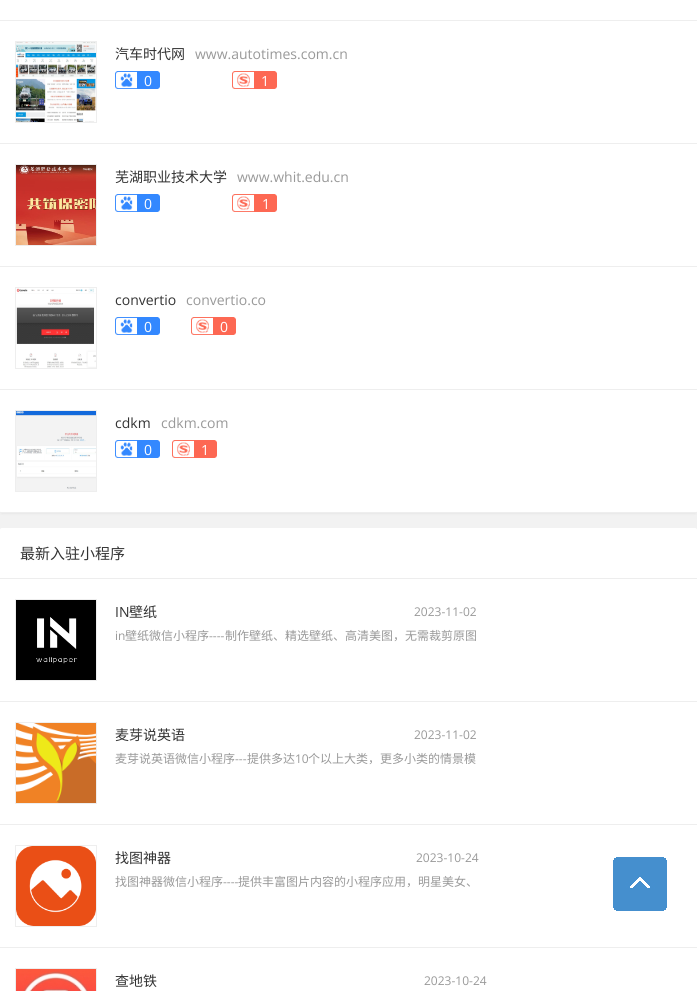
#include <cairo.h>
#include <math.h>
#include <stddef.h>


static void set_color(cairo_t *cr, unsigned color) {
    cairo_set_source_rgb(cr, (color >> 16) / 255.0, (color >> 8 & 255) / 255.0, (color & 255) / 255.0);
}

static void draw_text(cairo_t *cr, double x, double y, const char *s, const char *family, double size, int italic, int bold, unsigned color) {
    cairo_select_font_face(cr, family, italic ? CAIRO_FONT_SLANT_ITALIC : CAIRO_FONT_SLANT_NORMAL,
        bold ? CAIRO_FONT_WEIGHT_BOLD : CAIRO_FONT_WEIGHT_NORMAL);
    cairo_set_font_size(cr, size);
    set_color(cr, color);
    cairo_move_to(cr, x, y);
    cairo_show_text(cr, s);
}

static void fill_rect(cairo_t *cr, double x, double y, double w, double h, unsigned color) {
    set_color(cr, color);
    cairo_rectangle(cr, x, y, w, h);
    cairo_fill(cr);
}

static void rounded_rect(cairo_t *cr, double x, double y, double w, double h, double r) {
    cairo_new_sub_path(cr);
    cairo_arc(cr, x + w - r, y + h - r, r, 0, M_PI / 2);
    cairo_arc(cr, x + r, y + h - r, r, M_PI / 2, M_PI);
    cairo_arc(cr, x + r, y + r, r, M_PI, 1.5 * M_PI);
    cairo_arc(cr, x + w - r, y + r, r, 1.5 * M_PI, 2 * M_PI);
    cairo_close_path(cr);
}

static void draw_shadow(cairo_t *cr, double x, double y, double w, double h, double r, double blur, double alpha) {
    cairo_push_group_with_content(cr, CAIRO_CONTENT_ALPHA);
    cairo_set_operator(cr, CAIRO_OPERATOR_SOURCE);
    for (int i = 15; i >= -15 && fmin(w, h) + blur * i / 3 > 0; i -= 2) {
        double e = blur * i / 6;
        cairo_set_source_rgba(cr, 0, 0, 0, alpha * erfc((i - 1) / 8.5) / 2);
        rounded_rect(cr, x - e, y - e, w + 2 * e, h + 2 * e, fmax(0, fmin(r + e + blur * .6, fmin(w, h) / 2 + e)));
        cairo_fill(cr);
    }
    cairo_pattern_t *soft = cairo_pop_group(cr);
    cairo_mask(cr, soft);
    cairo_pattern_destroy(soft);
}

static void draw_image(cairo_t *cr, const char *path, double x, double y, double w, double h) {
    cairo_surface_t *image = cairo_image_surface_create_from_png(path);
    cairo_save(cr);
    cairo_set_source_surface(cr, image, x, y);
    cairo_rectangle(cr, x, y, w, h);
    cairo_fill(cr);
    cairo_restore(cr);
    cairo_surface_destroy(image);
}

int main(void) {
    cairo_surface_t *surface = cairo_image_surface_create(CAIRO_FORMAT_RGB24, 697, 991);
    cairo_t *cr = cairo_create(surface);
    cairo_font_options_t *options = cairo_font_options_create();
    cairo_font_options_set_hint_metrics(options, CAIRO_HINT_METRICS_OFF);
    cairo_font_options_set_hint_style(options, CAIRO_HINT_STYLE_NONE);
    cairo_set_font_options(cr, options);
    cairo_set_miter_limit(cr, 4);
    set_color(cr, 0xF2F2F2);
    cairo_paint(cr);
    set_color(cr, 0x000000);
    draw_shadow(cr, 0, -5, 697, 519, 2, 1, 0.05);
    set_color(cr, 0xFFFFFF);
    rounded_rect(cr, 0, -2, 697, 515, 2);
    cairo_fill(cr);
    fill_rect(cr, 0, 20, 697, 1, 0xEEEEEE);
    fill_rect(cr, 0, 143, 697, 1, 0xEEEEEE);
    cairo_rectangle(cr, 15.5, 41.5, 81, 81);
    cairo_set_line_width(cr, 1);
    cairo_stroke(cr);
    draw_image(cr, "assets/img1.png", 16, 42, 80, 80);
    draw_text(cr, 115, 59, "汽车时代网", "Noto Sans CJK SC", 14, 0, 0, 0x333333);
    draw_text(cr, 195, 59, "www.autotimes.com.cn", "Open Sans", 14, 0, 0, 0x999999);
    draw_image(cr, "assets/img2.png", 115, 71, 45, 18);
    draw_text(cr, 144, 86, "0", "Open Sans", 14, 0, 0, 0xFFFFFF);
    draw_image(cr, "assets/img3.png", 232, 71, 45, 18);
    draw_text(cr, 261, 86, "1", "Open Sans", 14, 0, 0, 0xFFFFFF);
    fill_rect(cr, 0, 266, 697, 1, 0xEEEEEE);
    cairo_rectangle(cr, 15.5, 164.5, 81, 81);
    cairo_stroke(cr);
    draw_image(cr, "assets/img4.png", 16, 165, 80, 80);
    draw_text(cr, 115, 182, "芜湖职业技术大学", "Noto Sans CJK SC", 14, 0, 0, 0x333333);
    draw_text(cr, 237, 182, "www.whit.edu.cn", "Open Sans", 14, 0, 0, 0x999999);
    draw_image(cr, "assets/img2.png", 115, 194, 45, 18);
    draw_text(cr, 144, 209, "0", "Open Sans", 14, 0, 0, 0xFFFFFF);
    draw_image(cr, "assets/img3.png", 232, 194, 45, 18);
    draw_text(cr, 262, 209, "1", "Open Sans", 14, 0, 0, 0xFFFFFF);
    fill_rect(cr, 0, 389, 697, 1, 0xEEEEEE);
    cairo_rectangle(cr, 15.5, 287.5, 81, 81);
    cairo_stroke(cr);
    draw_image(cr, "assets/img5.png", 16, 288, 80, 80);
    draw_text(cr, 115, 305, "convertio", "Open Sans", 14, 0, 0, 0x333333);
    draw_text(cr, 186, 305, "convertio.co", "Open Sans", 14, 0, 0, 0x999999);
    draw_image(cr, "assets/img2.png", 115, 317, 45, 18);
    draw_text(cr, 144, 332, "0", "Open Sans", 14, 0, 0, 0xFFFFFF);
    draw_image(cr, "assets/img3.png", 191, 317, 45, 18);
    draw_text(cr, 220, 332, "0", "Open Sans", 14, 0, 0, 0xFFFFFF);
    fill_rect(cr, 0, 512, 697, 1, 0xEEEEEE);
    cairo_rectangle(cr, 15.5, 410.5, 81, 81);
    cairo_stroke(cr);
    draw_image(cr, "assets/img6.png", 16, 411, 80, 80);
    draw_text(cr, 115, 428, "cdkm", "Open Sans", 14, 0, 0, 0x333333);
    draw_text(cr, 161, 428, "cdkm.com", "Open Sans", 14, 0, 0, 0x999999);
    draw_image(cr, "assets/img7.png", 115, 440, 45, 18);
    draw_text(cr, 144, 455, "0", "Open Sans", 14, 0, 0, 0xFFFFFF);
    draw_image(cr, "assets/img8.png", 172, 440, 45, 18);
    draw_text(cr, 201, 455, "1", "Open Sans", 14, 0, 0, 0xFFFFFF);
    rounded_rect(cr, 0, 528, 697, 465, 2);
    cairo_fill(cr);
    fill_rect(cr, 0, 578, 697, 1, 0xEDEDED);
    draw_text(cr, 20, 559, "最新入驻小程序", "Noto Sans CJK SC", 15, 0, 0, 0x333333);
    fill_rect(cr, 0, 701, 697, 1, 0xEEEEEE);
    cairo_rectangle(cr, 15.5, 599.5, 81, 81);
    cairo_stroke(cr);
    draw_image(cr, "assets/img9.png", 16, 600, 80, 80);
    draw_text(cr, 115, 617, "IN", "Open Sans", 14, 0, 0, 0x333333);
    draw_text(cr, 129, 617, "壁纸", "Noto Sans CJK SC", 14, 0, 0, 0x333333);
    draw_text(cr, 414, 616, "2023-11-02", "Open Sans", 12, 0, 0, 0x999999);
    draw_text(cr, 115, 640, "in", "Open Sans", 12, 0, 0, 0x999999);
    draw_text(cr, 125, 640, "壁纸微信小程序", "Noto Sans CJK SC", 12, 0, 0, 0x999999);
    draw_text(cr, 209, 640, "----", "Open Sans", 12, 0, 0, 0x999999);
    draw_text(cr, 225, 640, "制作壁纸、精选壁纸、高清美图，无需裁剪原图", "Noto Sans CJK SC", 12, 0, 0, 0x999999);
    fill_rect(cr, 0, 824, 697, 1, 0xEEEEEE);
    cairo_rectangle(cr, 15.5, 722.5, 81, 81);
    cairo_stroke(cr);
    draw_image(cr, "assets/img10.png", 16, 723, 80, 80);
    draw_text(cr, 115, 740, "麦芽说英语", "Noto Sans CJK SC", 14, 0, 0, 0x333333);
    draw_text(cr, 414, 739, "2023-11-02", "Open Sans", 12, 0, 0, 0x999999);
    draw_text(cr, 115, 763, "麦芽说英语微信小程序", "Noto Sans CJK SC", 12, 0, 0, 0x999999);
    draw_text(cr, 235, 763, "---", "Open Sans", 12, 0, 0, 0x999999);
    draw_text(cr, 247, 763, "提供多达", "Noto Sans CJK SC", 12, 0, 0, 0x999999);
    draw_text(cr, 295, 763, "10", "Open Sans", 12, 0, 0, 0x999999);
    draw_text(cr, 308, 763, "个以上大类，更多小类的情景模", "Noto Sans CJK SC", 12, 0, 0, 0x999999);
    fill_rect(cr, 0, 947, 697, 1, 0xEEEEEE);
    cairo_rectangle(cr, 15.5, 845.5, 81, 81);
    cairo_stroke(cr);
    draw_image(cr, "assets/img11.png", 16, 846, 80, 80);
    draw_text(cr, 115, 863, "找图神器", "Noto Sans CJK SC", 14, 0, 0, 0x333333);
    draw_text(cr, 416, 862, "2023-10-24", "Open Sans", 12, 0, 0, 0x999999);
    draw_text(cr, 115, 886, "找图神器微信小程序", "Noto Sans CJK SC", 12, 0, 0, 0x999999);
    draw_text(cr, 223, 886, "----", "Open Sans", 12, 0, 0, 0x999999);
    draw_text(cr, 238, 886, "提供丰富图片内容的小程序应用，明星美女、", "Noto Sans CJK SC", 12, 0, 0, 0x999999);
    cairo_rectangle(cr, 15.5, 968.5, 81, 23);
    set_color(cr, 0xEEEEEE);
    cairo_stroke(cr);
    draw_image(cr, "assets/img12.png", 16, 969, 80, 22);
    draw_text(cr, 115, 986, "查地铁", "Noto Sans CJK SC", 14, 0, 0, 0x333333);
    draw_text(cr, 424, 985, "2023-10-24", "Open Sans", 12, 0, 0, 0x999999);
    draw_image(cr, "assets/img13.png", 613, 857, 54, 54);
    cairo_surface_write_to_png(surface, "output.png");
    cairo_font_options_destroy(options);
    cairo_destroy(cr);
    cairo_surface_destroy(surface);
    return 0;
}
